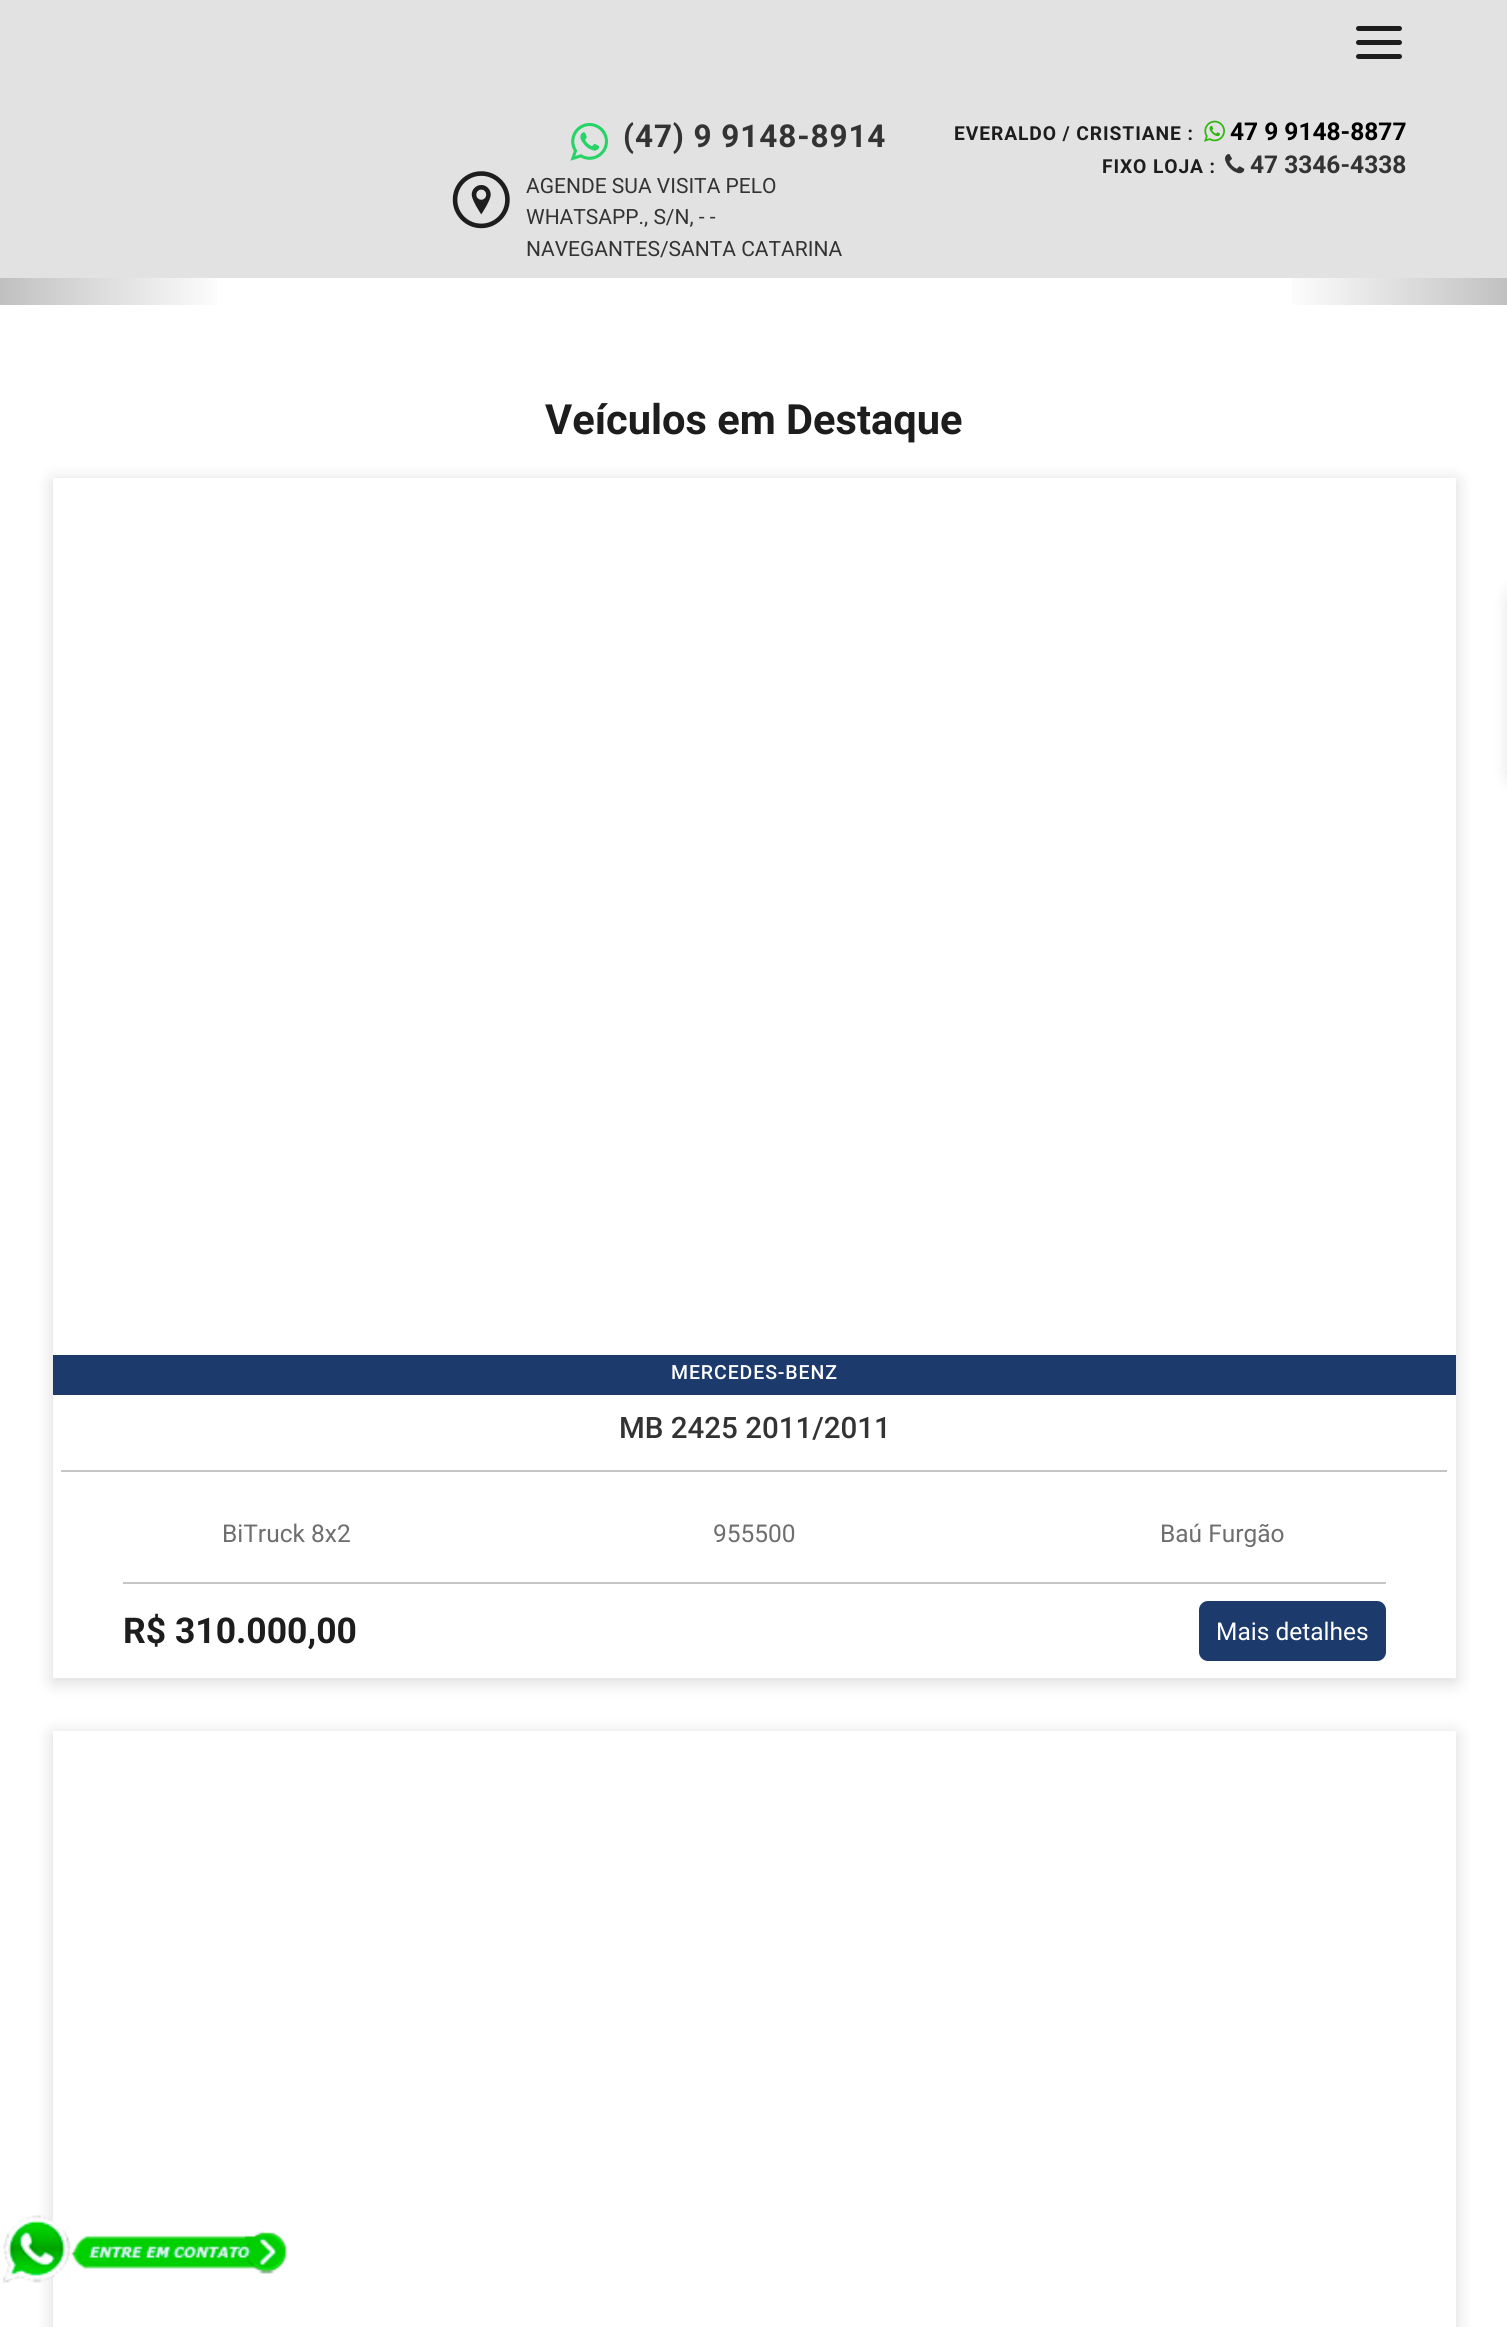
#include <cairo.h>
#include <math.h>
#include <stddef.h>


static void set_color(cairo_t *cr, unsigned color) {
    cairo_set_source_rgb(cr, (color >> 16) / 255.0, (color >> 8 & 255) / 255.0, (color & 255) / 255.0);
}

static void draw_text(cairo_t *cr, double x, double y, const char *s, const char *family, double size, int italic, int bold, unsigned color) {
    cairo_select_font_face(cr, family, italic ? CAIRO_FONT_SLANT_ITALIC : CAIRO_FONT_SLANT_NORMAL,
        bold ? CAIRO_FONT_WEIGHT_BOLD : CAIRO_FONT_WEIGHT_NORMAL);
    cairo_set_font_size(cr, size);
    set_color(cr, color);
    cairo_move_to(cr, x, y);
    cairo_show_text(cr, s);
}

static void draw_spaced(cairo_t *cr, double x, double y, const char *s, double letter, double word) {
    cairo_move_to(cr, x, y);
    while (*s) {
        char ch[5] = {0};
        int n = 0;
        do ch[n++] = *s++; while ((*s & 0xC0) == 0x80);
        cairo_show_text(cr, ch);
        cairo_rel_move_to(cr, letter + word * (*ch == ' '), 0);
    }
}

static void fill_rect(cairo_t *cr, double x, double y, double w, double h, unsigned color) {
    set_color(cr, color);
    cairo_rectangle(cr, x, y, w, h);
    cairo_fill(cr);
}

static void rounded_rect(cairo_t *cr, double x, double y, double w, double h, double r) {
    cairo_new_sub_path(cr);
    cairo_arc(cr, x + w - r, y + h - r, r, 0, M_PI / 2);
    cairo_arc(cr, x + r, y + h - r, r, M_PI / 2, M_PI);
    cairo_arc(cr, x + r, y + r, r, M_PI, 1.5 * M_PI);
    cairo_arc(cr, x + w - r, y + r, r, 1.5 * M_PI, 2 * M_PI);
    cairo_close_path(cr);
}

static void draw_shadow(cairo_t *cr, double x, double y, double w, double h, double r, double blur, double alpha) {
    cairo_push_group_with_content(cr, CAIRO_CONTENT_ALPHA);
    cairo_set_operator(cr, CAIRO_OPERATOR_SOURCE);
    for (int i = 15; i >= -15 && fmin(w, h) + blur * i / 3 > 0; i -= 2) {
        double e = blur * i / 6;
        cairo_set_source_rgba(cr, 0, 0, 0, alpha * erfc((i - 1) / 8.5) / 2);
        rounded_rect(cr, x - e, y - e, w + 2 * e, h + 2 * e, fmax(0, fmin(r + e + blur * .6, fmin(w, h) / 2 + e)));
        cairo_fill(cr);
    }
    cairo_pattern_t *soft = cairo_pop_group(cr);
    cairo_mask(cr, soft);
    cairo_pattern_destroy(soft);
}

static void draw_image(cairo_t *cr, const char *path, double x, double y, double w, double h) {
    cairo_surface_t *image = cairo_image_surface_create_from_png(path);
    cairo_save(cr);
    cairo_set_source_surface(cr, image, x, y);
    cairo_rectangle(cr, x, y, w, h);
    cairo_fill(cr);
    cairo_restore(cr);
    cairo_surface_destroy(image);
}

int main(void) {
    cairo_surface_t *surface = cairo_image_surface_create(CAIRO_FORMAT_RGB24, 1507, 2327);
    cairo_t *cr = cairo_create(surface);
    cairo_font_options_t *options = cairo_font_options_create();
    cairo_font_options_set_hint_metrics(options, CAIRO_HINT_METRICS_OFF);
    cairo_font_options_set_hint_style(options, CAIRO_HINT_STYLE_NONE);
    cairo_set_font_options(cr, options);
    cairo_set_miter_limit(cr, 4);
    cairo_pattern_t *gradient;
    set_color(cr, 0xFFFFFF);
    cairo_paint(cr);
    fill_rect(cr, 0, 0, 1507, 278, 0xE2E2E2);
    set_color(cr, 0x1D1D1D);
    rounded_rect(cr, 1356, 26, 46, 5, 2.5);
    cairo_fill(cr);
    rounded_rect(cr, 1356, 40, 46, 5, 2.5);
    cairo_fill(cr);
    rounded_rect(cr, 1356, 54, 46, 5, 2.5);
    cairo_fill(cr);
    draw_image(cr, "assets/img1.png", 570, 123, 38, 38);
    cairo_select_font_face(cr, "Roboto", CAIRO_FONT_SLANT_NORMAL, CAIRO_FONT_WEIGHT_BOLD);
    cairo_set_font_size(cr, 31.5);
    set_color(cr, 0x333333);
    draw_spaced(cr, 623, 147, "(47) 9 9148-8914", 0.9, 0);
    cairo_set_font_size(cr, 19.25);
    set_color(cr, 0x1D1D1D);
    draw_spaced(cr, 954, 140, "EVERALDO / CRISTIANE :", 0.9, 0);
    draw_image(cr, "assets/img2.png", 1204, 120, 21, 22);
    draw_text(cr, 1230, 140, "47 9 9148-8877", "Roboto", 24.5, 0, 1, 0x000000);
    cairo_set_font_size(cr, 19.25);
    set_color(cr, 0x1D1D1D);
    draw_spaced(cr, 1102, 173, "FIXO LOJA :", 0.9, 0);
    draw_image(cr, "assets/img3.png", 1225, 154, 20, 20);
    draw_text(cr, 1250, 173, "47 3346-4338", "Roboto", 24.5, 0, 1, 0x333333);
    draw_image(cr, "assets/img4.png", 452, 171, 58, 58);
    draw_text(cr, 526, 193, "AGENDE SUA VISITA PELO", "Roboto", 21, 0, 0, 0x333333);
    draw_text(cr, 526, 224, "WHATSAPP., S/N, - -", "Roboto", 21, 0, 0, 0x333333);
    draw_text(cr, 526, 256, "NAVEGANTES/SANTA CATARINA", "Roboto", 21, 0, 0, 0x333333);
    gradient = cairo_pattern_create_linear(0, 287, 226, 287);
    cairo_pattern_add_color_stop_rgba(gradient, 0, 0.753, 0.753, 0.753, 1);
    cairo_pattern_add_color_stop_rgba(gradient, 1, 1, 1, 1, 1);
    cairo_set_source(cr, gradient);
    cairo_pattern_destroy(gradient);
    cairo_rectangle(cr, 0, 278, 217, 27);
    cairo_fill(cr);
    fill_rect(cr, 120, 304, 2, 1, 0xE7E7E7);
    gradient = cairo_pattern_create_linear(1283, 287, 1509, 287);
    cairo_pattern_add_color_stop_rgba(gradient, 0, 1, 1, 1, 1);
    cairo_pattern_add_color_stop_rgba(gradient, 1, 0.753, 0.753, 0.753, 1);
    cairo_set_source(cr, gradient);
    cairo_pattern_destroy(gradient);
    cairo_rectangle(cr, 1292, 278, 215, 27);
    cairo_fill(cr);
    fill_rect(cr, 1386, 304, 1, 1, 0xE8E8E8);
    draw_text(cr, 545, 434, "Veículos em Destaque", "Roboto", 41.6, 0, 1, 0x1D1D1D);
    cairo_save(cr);
    cairo_set_fill_rule(cr, CAIRO_FILL_RULE_EVEN_ODD);
    cairo_new_path(cr);
    cairo_move_to(cr, 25, 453);
    cairo_line_to(cr, 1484, 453);
    cairo_line_to(cr, 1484, 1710);
    cairo_line_to(cr, 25, 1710);
    cairo_close_path(cr);
    cairo_move_to(cr, 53, 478);
    cairo_line_to(cr, 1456, 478);
    cairo_line_to(cr, 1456, 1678);
    cairo_line_to(cr, 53, 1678);
    cairo_close_path(cr);
    cairo_clip(cr);
    set_color(cr, 0x000000);
    draw_shadow(cr, 53, 481, 1403, 1201, 0, 9, 0.15);
    cairo_restore(cr);
    fill_rect(cr, 53, 1355, 1403, 40, 0x1D3A6C);
    cairo_select_font_face(cr, "Roboto Medium", CAIRO_FONT_SLANT_NORMAL, CAIRO_FONT_WEIGHT_NORMAL);
    cairo_set_font_size(cr, 19.5);
    set_color(cr, 0xFFFFFF);
    draw_spaced(cr, 671, 1379, "MERCEDES-BENZ", 0.9, 0);
    fill_rect(cr, 61, 1470, 1386, 2, 0xC5C5C5);
    draw_text(cr, 619, 1438, "MB 2425 2011/2011", "Roboto Medium", 29.5, 0, 0, 0x333333);
    draw_text(cr, 222, 1542, "BiTruck 8x2", "Roboto", 24.5, 0, 0, 0x6E6E6E);
    draw_text(cr, 713, 1542, "955500", "Roboto", 24.5, 0, 0, 0x6E6E6E);
    draw_text(cr, 1160, 1542, "Baú Furgão", "Roboto", 24.5, 0, 0, 0x6E6E6E);
    fill_rect(cr, 123, 1582, 1263, 2, 0xC5C5C5);
    draw_text(cr, 123, 1643, "R$ 310.000,00", "Roboto", 35.5, 0, 1, 0x1D1D1D);
    set_color(cr, 0x1D3A6C);
    rounded_rect(cr, 1199, 1601, 187, 60, 9);
    cairo_fill(cr);
    draw_text(cr, 1216, 1640, "Mais detalhes", "Roboto", 24.5, 0, 0, 0xFFFFFF);
    cairo_save(cr);
    cairo_set_fill_rule(cr, CAIRO_FILL_RULE_EVEN_ODD);
    cairo_new_path(cr);
    cairo_move_to(cr, 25, 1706);
    cairo_line_to(cr, 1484, 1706);
    cairo_line_to(cr, 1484, 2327);
    cairo_line_to(cr, 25, 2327);
    cairo_close_path(cr);
    cairo_move_to(cr, 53, 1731);
    cairo_line_to(cr, 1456, 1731);
    cairo_line_to(cr, 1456, 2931);
    cairo_line_to(cr, 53, 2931);
    cairo_close_path(cr);
    cairo_clip(cr);
    set_color(cr, 0x000000);
    draw_shadow(cr, 53, 1734, 1403, 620, 0, 9, 0.15);
    cairo_restore(cr);
    set_color(cr, 0x000000);
    draw_shadow(cr, 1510, 586, 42, 202, 18, 9, 0.15);
    draw_image(cr, "assets/img5.png", 2, 2215, 286, 69);
    cairo_surface_write_to_png(surface, "output.png");
    cairo_font_options_destroy(options);
    cairo_destroy(cr);
    cairo_surface_destroy(surface);
    return 0;
}
